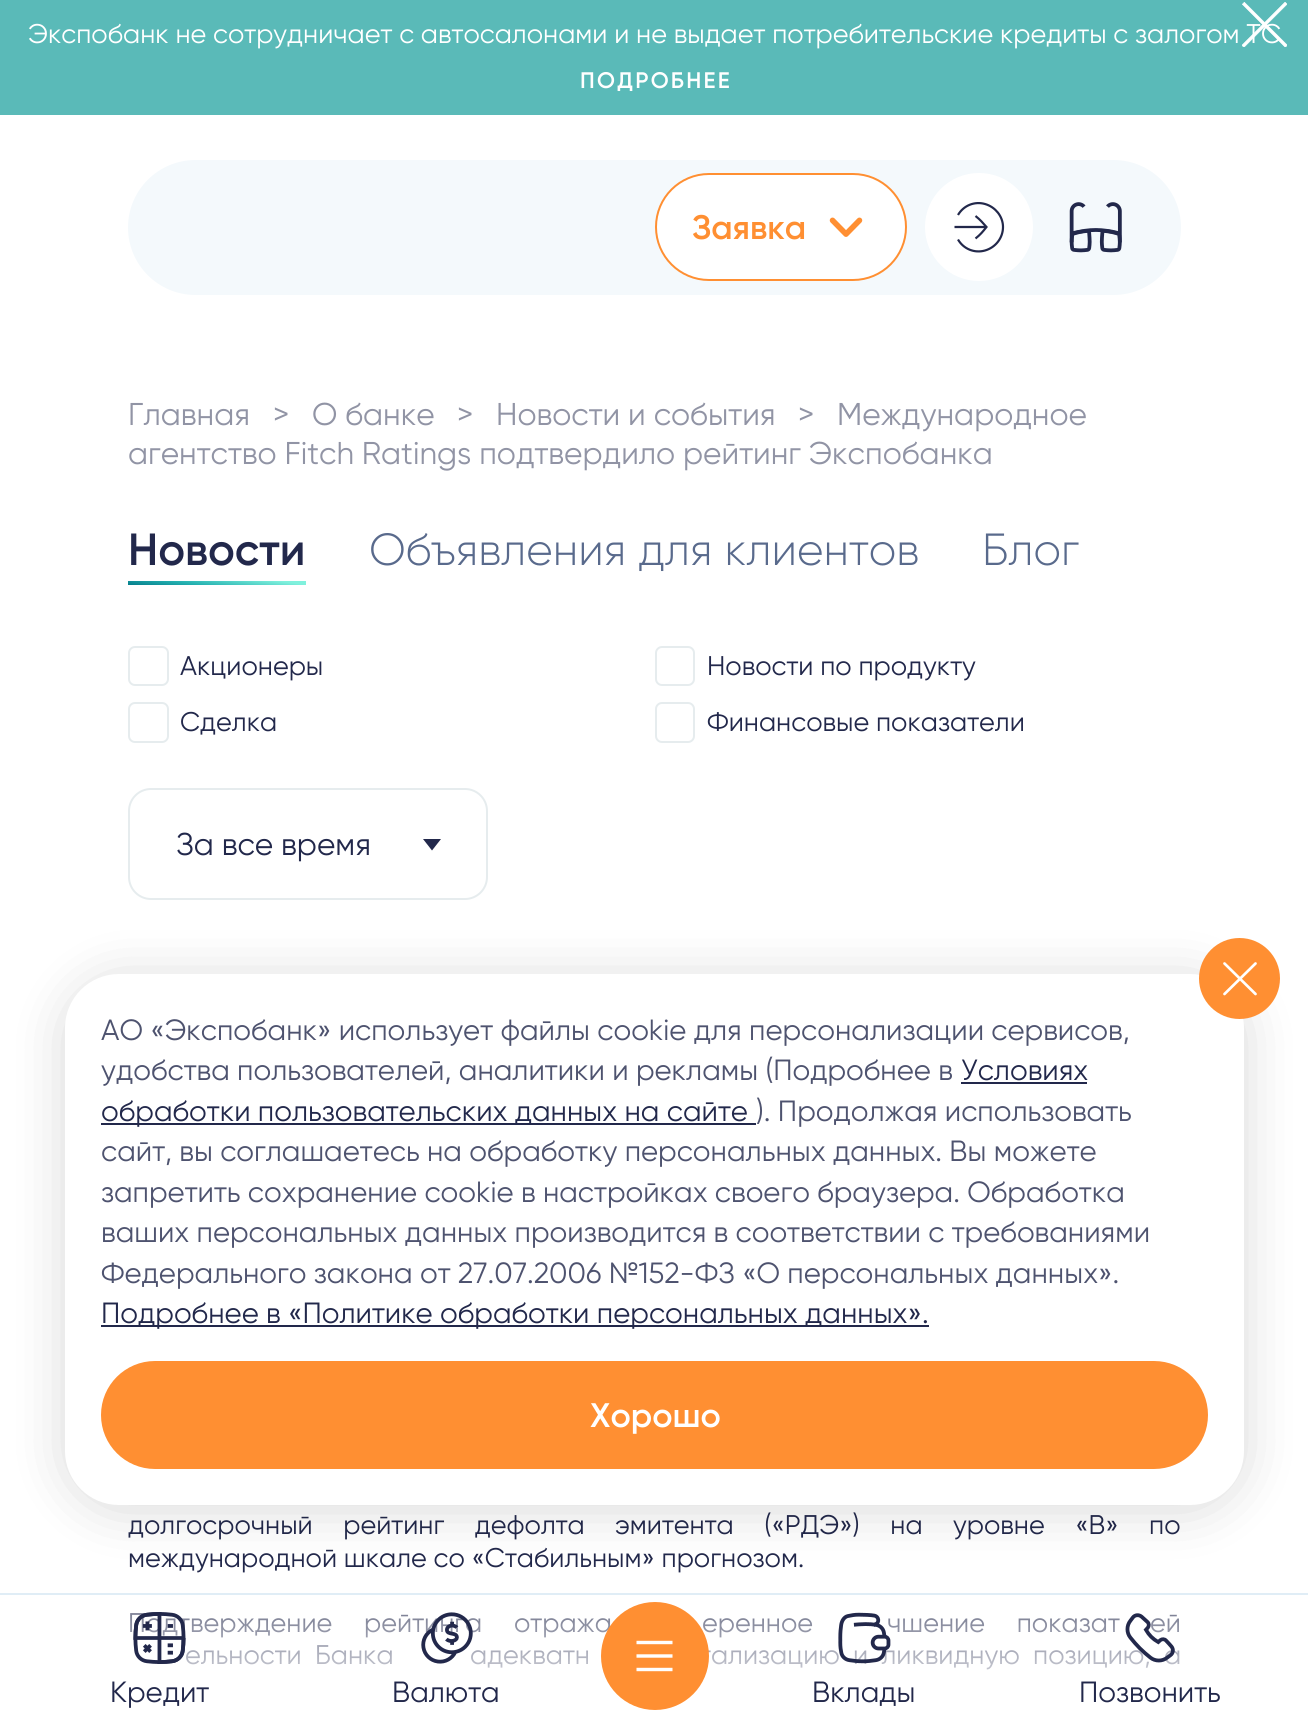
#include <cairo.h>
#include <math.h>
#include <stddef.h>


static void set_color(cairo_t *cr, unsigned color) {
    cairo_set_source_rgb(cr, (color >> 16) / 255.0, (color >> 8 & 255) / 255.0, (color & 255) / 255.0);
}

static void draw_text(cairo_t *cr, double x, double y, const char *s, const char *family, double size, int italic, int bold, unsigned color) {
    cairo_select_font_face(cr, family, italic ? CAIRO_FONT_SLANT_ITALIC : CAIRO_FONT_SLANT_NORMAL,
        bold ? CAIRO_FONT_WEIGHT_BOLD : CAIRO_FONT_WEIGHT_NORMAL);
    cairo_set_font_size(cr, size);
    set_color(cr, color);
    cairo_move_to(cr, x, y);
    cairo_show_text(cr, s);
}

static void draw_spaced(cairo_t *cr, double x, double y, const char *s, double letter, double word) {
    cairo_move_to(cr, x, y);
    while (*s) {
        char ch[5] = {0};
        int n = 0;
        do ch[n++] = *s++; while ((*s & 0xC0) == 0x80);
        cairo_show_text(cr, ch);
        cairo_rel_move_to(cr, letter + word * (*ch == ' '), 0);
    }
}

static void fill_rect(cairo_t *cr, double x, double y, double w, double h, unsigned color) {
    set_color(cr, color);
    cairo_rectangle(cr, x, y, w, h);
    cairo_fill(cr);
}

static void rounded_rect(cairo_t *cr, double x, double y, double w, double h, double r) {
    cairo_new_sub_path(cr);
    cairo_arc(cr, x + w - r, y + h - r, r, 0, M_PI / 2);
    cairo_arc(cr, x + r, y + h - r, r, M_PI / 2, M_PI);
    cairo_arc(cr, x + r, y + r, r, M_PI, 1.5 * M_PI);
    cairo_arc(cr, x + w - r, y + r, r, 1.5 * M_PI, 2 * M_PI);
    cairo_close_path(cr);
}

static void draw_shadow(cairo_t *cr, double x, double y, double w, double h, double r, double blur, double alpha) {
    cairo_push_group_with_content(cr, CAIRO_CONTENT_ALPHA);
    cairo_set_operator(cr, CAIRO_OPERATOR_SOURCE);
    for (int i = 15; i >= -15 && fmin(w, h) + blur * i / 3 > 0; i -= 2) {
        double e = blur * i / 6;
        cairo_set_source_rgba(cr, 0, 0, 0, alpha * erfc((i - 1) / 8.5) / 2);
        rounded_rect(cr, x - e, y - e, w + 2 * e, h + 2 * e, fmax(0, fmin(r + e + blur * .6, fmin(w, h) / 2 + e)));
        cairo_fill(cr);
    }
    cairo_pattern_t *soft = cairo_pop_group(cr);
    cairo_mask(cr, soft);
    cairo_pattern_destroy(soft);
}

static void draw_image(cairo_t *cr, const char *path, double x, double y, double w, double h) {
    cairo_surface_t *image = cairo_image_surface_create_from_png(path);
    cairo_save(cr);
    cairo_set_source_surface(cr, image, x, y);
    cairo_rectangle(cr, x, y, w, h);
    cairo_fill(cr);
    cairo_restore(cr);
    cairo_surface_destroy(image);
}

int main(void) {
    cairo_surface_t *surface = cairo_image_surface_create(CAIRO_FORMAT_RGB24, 1308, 1717);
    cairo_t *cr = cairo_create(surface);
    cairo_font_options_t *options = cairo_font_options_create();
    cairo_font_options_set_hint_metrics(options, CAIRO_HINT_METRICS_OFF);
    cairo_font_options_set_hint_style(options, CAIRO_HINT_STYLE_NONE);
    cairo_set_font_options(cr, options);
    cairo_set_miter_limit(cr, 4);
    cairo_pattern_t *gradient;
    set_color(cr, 0xFFFFFF);
    cairo_paint(cr);
    fill_rect(cr, 0, 0, 1308, 115, 0x5ABAB8);
    draw_text(cr, 28, 43, "Экспобанк не сотрудничает с автосалонами и не выдает потребительские кредиты с залогом ТС", "Gilroy", 27, 0, 0, 0xFFFFFF);
    draw_image(cr, "assets/img1.png", 1242, 2, 45, 45);
    cairo_select_font_face(cr, "Gilroy SemiBold", CAIRO_FONT_SLANT_NORMAL, CAIRO_FONT_WEIGHT_NORMAL);
    cairo_set_font_size(cr, 22.5);
    draw_spaced(cr, 580, 88, "ПОДРОБНЕЕ", 2.25, 0);
    set_color(cr, 0xF4F9FC);
    rounded_rect(cr, 128, 160, 1053, 135, 67.5);
    cairo_fill(cr);
    set_color(cr, 0xFFFFFF);
    rounded_rect(cr, 656, 174, 250, 106, 53);
    cairo_fill_preserve(cr);
    set_color(cr, 0xFF8F32);
    cairo_stroke(cr);
    draw_text(cr, 692, 239, "Заявка", "Gilroy SemiBold", 34, 0, 0, 0xFF8F32);
    draw_image(cr, "assets/img2.png", 829, 217, 34, 20);
    set_color(cr, 0xFFFFFF);
    cairo_arc(cr, 979, 227, 54, 0, 2 * M_PI);
    cairo_fill(cr);
    cairo_new_path(cr);
    cairo_move_to(cr, 958, 215);
    cairo_curve_to(cr, 963.5, 205.5, 974.5, 201, 985, 204);
    cairo_curve_to(cr, 995.5, 207, 1003, 216.5, 1003, 227);
    cairo_curve_to(cr, 1003, 238, 995.5, 247.5, 985, 250.5);
    cairo_curve_to(cr, 974.5, 253.5, 963.5, 249, 958, 239.5);
    cairo_move_to(cr, 975.5, 216);
    cairo_curve_to(cr, 980.5, 220, 982.5, 222.5, 986.5, 227);
    cairo_curve_to(cr, 982.5, 232, 980.5, 234.5, 975.5, 238.5);
    cairo_move_to(cr, 954.5, 227);
    cairo_line_to(cr, 986.5, 227);
    set_color(cr, 0x22284B);
    cairo_set_line_width(cr, 2.2);
    cairo_stroke(cr);
    draw_image(cr, "assets/img3.png", 1069, 202, 53, 51);
    draw_text(cr, 128, 425, "Главная", "Gilroy", 31.5, 0, 0, 0x9194A5);
    draw_text(cr, 273, 425, ">", "Gilroy", 31.5, 0, 0, 0x9194A5);
    draw_text(cr, 312, 425, "О банке", "Gilroy", 31.5, 0, 0, 0x9194A5);
    draw_text(cr, 457, 425, ">", "Gilroy", 31.5, 0, 0, 0x9194A5);
    draw_text(cr, 496, 425, "Новости и события", "Gilroy", 31.5, 0, 0, 0x9194A5);
    draw_text(cr, 798, 425, ">", "Gilroy", 31.5, 0, 0, 0x9194A5);
    draw_text(cr, 837, 425, "Международное", "Gilroy", 31.5, 0, 0, 0x9194A5);
    draw_text(cr, 128, 464, "агентство Fitch Ratings подтвердило рейтинг Экспобанка", "Gilroy", 31.5, 0, 0, 0x9194A5);
    draw_text(cr, 128, 565, "Новости", "Gilroy SemiBold", 45, 0, 0, 0x22284B);
    gradient = cairo_pattern_create_linear(215, 597, 219, 569);
    cairo_pattern_add_color_stop_rgba(gradient, 0, 0.024, 0.498, 0.549, 1);
    cairo_pattern_add_color_stop_rgba(gradient, 0.34, 0.137, 0.69, 0.69, 1);
    cairo_pattern_add_color_stop_rgba(gradient, 0.88, 0.502, 0.945, 0.867, 1);
    cairo_set_source(cr, gradient);
    cairo_pattern_destroy(gradient);
    cairo_rectangle(cr, 128, 581, 178, 4);
    cairo_fill(cr);
    draw_text(cr, 369, 565, "Объявления для клиентов", "Gilroy Light", 45, 0, 0, 0x596A8C);
    draw_text(cr, 982, 565, "Блог", "Gilroy Light", 45, 0, 0, 0x596A8C);
    rounded_rect(cr, 129, 647, 39, 38, 6);
    set_color(cr, 0xE6ECEE);
    cairo_set_line_width(cr, 2);
    cairo_stroke(cr);
    draw_text(cr, 180, 675, "Акционеры", "Gilroy", 27, 0, 0, 0x22284B);
    rounded_rect(cr, 656, 647, 38, 38, 6);
    set_color(cr, 0xE6ECEE);
    cairo_stroke(cr);
    draw_text(cr, 707, 675, "Новости по продукту", "Gilroy", 27, 0, 0, 0x22284B);
    rounded_rect(cr, 129, 703, 39, 39, 6);
    set_color(cr, 0xE6ECEE);
    cairo_stroke(cr);
    draw_text(cr, 180, 731, "Сделка", "Gilroy", 27, 0, 0, 0x22284B);
    rounded_rect(cr, 656, 703, 38, 39, 6);
    set_color(cr, 0xE6ECEE);
    cairo_stroke(cr);
    draw_text(cr, 707, 731, "Финансовые показатели", "Gilroy", 27, 0, 0, 0x22284B);
    rounded_rect(cr, 129, 789, 358, 110, 22);
    set_color(cr, 0xE6ECEE);
    cairo_stroke(cr);
    draw_text(cr, 176, 855, "За все время", "Gilroy", 31.5, 0, 0, 0x22284B);
    cairo_new_path(cr);
    cairo_move_to(cr, 423, 839);
    cairo_line_to(cr, 441, 839);
    cairo_line_to(cr, 432, 850.5);
    cairo_close_path(cr);
    cairo_fill(cr);
    cairo_set_font_size(cr, 27);
    draw_spaced(cr, 128, 1534, "долгосрочный рейтинг дефолта эмитента («РДЭ») на уровне «B» по", 0, 23.75);
    draw_text(cr, 128, 1567, "международной шкале со «Стабильным» прогнозом.", "Gilroy", 27, 0, 0, 0x22284B);
    draw_spaced(cr, 128, 1632, "Подтверждение рейтинга отража", 0, 25);
    draw_spaced(cr, 702, 1632, "еренное", 0, 25);
    draw_spaced(cr, 887, 1632, "чшение показат", 0, 25);
    draw_spaced(cr, 1150, 1632, "ей", 0, 25);
    draw_spaced(cr, 185, 1664, "ельности Банка", 0, 6.5);
    draw_spaced(cr, 470, 1664, "адекватн", 0, 6.5);
    draw_spaced(cr, 699, 1664, "тализацию и ликвидную позицию, а", 0, 6.5);
    set_color(cr, 0x000000);
    draw_shadow(cr, 65, 979, 1179, 531, 54, 27, 0.15);
    set_color(cr, 0xFFFFFF);
    rounded_rect(cr, 65, 974, 1179, 531, 54);
    cairo_fill(cr);
    set_color(cr, 0xFF8F32);
    cairo_arc(cr, 1239.5, 978.5, 40.5, 0, 2 * M_PI);
    cairo_fill(cr);
    cairo_new_path(cr);
    cairo_move_to(cr, 1255.5, 994);
    cairo_line_to(cr, 1224.5, 963.5);
    cairo_move_to(cr, 1224.5, 994);
    cairo_line_to(cr, 1255.5, 963.5);
    set_color(cr, 0xFFFFFF);
    cairo_set_line_width(cr, 2.7);
    cairo_set_line_cap(cr, CAIRO_LINE_CAP_ROUND);
    cairo_stroke(cr);
    draw_text(cr, 101, 1040, "АО «Экспобанк» использует файлы cookie для персонализации сервисов,", "Gilroy", 29.25, 0, 0, 0x4E536F);
    draw_text(cr, 101, 1080, "удобства пользователей, аналитики и рекламы (Подробнее в", "Gilroy", 29.25, 0, 0, 0x4E536F);
    draw_text(cr, 961, 1080, "Условиях", "Gilroy", 29.25, 0, 0, 0x22284B);
    fill_rect(cr, 961, 1082, 126, 2, 0x22284B);
    fill_rect(cr, 101, 1123, 655, 2, 0x22284B);
    draw_text(cr, 101, 1121, "обработки пользовательских данных на сайте", "Gilroy", 29.25, 0, 0, 0x22284B);
    draw_text(cr, 756, 1121, "). Продолжая использовать", "Gilroy", 29.25, 0, 0, 0x4E536F);
    draw_text(cr, 101, 1161, "сайт, вы соглашаетесь на обработку персональных данных. Вы можете", "Gilroy", 29.25, 0, 0, 0x4E536F);
    draw_text(cr, 101, 1202, "запретить сохранение cookie в настройках своего браузера. Обработка", "Gilroy", 29.25, 0, 0, 0x4E536F);
    draw_text(cr, 101, 1242, "ваших персональных данных производится в соответствии с требованиями", "Gilroy", 29.25, 0, 0, 0x4E536F);
    draw_text(cr, 101, 1283, "Федерального закона от 27.07.2006 №152-ФЗ «О персональных данных».", "Gilroy", 29.25, 0, 0, 0x4E536F);
    fill_rect(cr, 101, 1325, 828, 2, 0x22284B);
    draw_text(cr, 101, 1323, "Подробнее в «Политике обработки персональных данных».", "Gilroy", 29.25, 0, 0, 0x22284B);
    set_color(cr, 0xFF8F32);
    rounded_rect(cr, 101, 1361, 1107, 108, 54);
    cairo_fill(cr);
    draw_text(cr, 590, 1427, "Хорошо", "Gilroy SemiBold", 34, 0, 0, 0xFFFFFF);
    gradient = cairo_pattern_create_linear(655, 1593, 655, 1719);
    cairo_pattern_add_color_stop_rgba(gradient, 0, 1, 1, 1, 0.3);
    cairo_pattern_add_color_stop_rgba(gradient, 1, 1, 1, 1, 1);
    cairo_set_source(cr, gradient);
    cairo_pattern_destroy(gradient);
    cairo_rectangle(cr, 130, 1613, 1050, 57);
    cairo_fill(cr);
    fill_rect(cr, 0, 1593, 1308, 2, 0xE0EDF6);
    draw_image(cr, "assets/img4.png", 133, 1612, 53, 52);
    draw_text(cr, 110, 1702, "Кредит", "Gilroy", 29.25, 0, 0, 0x22284B);
    draw_image(cr, "assets/img5.png", 421, 1612, 52, 52);
    draw_text(cr, 392, 1702, "Валюта", "Gilroy", 29.25, 0, 0, 0x22284B);
    set_color(cr, 0xFF8F32);
    cairo_new_path(cr);
    cairo_arc(cr, 655, 1656, 54, 0, 2 * M_PI);
    cairo_fill(cr);
    cairo_new_path(cr);
    cairo_move_to(cr, 636.5, 1642.5);
    cairo_line_to(cr, 672.5, 1642.5);
    cairo_move_to(cr, 636.5, 1656);
    cairo_line_to(cr, 672.5, 1656);
    cairo_move_to(cr, 636.5, 1669.5);
    cairo_line_to(cr, 672.5, 1669.5);
    set_color(cr, 0xFFFFFF);
    cairo_set_line_width(cr, 3.4);
    cairo_set_line_cap(cr, CAIRO_LINE_CAP_BUTT);
    cairo_stroke(cr);
    draw_image(cr, "assets/img6.png", 838, 1612, 53, 52);
    draw_text(cr, 812, 1702, "Вклады", "Gilroy", 29.25, 0, 0, 0x22284B);
    draw_image(cr, "assets/img7.png", 1125, 1613, 50, 50);
    draw_text(cr, 1079, 1702, "Позвонить", "Gilroy", 29.25, 0, 0, 0x22284B);
    cairo_surface_write_to_png(surface, "output.png");
    cairo_font_options_destroy(options);
    cairo_destroy(cr);
    cairo_surface_destroy(surface);
    return 0;
}
